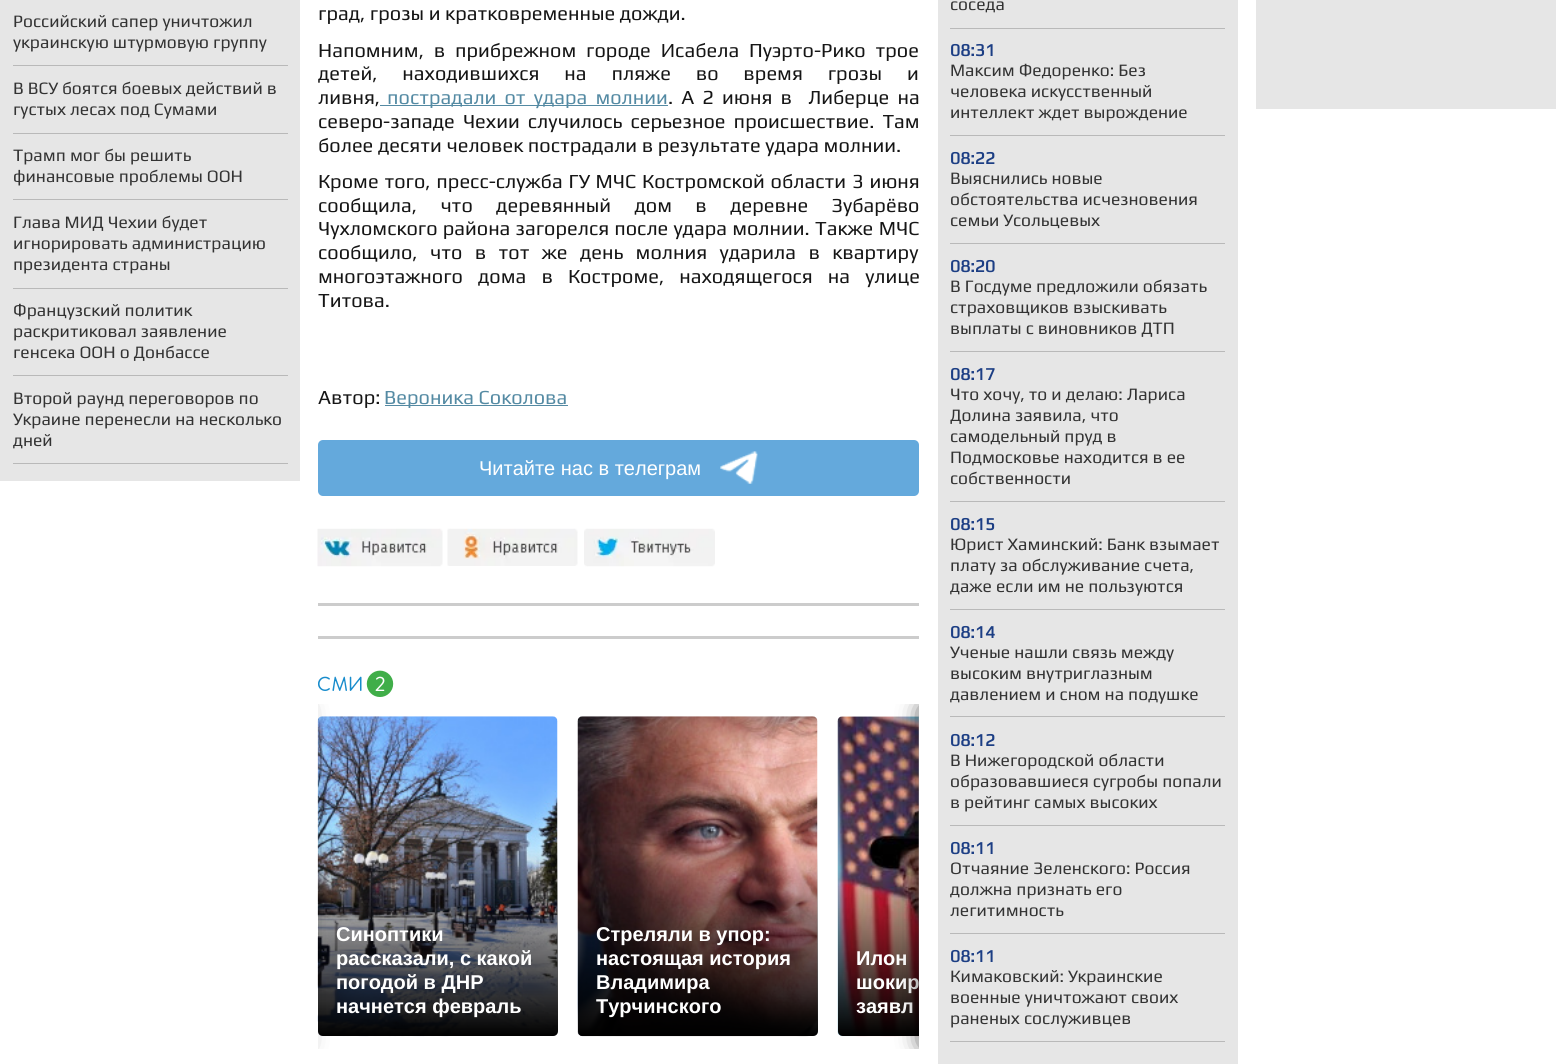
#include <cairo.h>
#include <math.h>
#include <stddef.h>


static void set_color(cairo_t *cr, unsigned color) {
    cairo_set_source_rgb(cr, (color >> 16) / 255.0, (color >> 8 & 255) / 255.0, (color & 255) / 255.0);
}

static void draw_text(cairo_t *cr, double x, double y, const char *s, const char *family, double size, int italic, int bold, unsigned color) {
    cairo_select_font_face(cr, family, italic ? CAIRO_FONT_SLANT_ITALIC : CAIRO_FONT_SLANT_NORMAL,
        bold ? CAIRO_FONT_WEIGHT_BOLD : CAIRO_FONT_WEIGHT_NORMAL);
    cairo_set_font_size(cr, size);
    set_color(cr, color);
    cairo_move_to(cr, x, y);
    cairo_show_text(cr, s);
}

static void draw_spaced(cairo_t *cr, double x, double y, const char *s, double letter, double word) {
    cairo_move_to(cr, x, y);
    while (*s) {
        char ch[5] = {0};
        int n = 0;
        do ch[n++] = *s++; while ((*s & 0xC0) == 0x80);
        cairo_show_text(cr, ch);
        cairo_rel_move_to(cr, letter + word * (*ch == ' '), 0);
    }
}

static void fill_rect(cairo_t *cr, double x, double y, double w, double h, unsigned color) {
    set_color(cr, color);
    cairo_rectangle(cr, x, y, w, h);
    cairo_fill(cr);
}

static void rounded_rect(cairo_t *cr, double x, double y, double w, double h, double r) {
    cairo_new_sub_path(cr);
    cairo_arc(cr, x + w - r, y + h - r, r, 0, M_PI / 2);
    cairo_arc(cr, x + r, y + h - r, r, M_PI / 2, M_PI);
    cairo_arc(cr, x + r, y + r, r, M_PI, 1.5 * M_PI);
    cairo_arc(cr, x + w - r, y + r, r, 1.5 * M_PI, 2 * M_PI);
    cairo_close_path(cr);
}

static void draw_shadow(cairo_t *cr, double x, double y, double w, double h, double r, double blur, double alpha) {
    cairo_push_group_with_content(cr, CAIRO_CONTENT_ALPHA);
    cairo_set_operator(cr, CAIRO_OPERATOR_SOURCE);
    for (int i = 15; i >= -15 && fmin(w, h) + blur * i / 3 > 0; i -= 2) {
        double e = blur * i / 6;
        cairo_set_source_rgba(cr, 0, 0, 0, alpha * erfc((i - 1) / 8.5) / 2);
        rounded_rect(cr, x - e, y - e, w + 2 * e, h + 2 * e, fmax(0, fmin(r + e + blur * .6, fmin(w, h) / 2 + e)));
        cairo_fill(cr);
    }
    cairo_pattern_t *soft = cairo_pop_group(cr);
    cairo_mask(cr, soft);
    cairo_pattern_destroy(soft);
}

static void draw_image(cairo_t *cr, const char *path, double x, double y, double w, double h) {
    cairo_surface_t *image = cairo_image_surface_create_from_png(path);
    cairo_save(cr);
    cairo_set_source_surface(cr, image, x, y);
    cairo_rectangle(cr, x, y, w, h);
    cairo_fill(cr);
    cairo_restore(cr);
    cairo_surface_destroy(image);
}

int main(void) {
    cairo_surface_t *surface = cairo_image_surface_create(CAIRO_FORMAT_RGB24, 1556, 1064);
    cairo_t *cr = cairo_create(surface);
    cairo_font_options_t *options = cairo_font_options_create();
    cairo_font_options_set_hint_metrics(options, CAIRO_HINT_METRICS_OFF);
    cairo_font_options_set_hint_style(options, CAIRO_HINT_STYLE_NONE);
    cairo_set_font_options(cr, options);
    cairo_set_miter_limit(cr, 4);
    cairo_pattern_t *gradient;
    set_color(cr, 0xFFFFFF);
    cairo_paint(cr);
    fill_rect(cr, 0, 0, 300, 481, 0xE6E6E6);
    draw_text(cr, 13, 27, "Российский сапер уничтожил", "Play", 17.5, 0, 0, 0x333333);
    draw_text(cr, 13, 48, "украинскую штурмовую группу", "Play", 17.5, 0, 0, 0x333333);
    fill_rect(cr, 13, 65, 275, 1, 0xB9B9B9);
    draw_text(cr, 13, 94, "В ВСУ боятся боевых действий в", "Play", 17.5, 0, 0, 0x333333);
    draw_text(cr, 13, 115, "густых лесах под Сумами", "Play", 17.5, 0, 0, 0x333333);
    fill_rect(cr, 13, 133, 275, 1, 0xB9B9B9);
    draw_text(cr, 13, 161, "Трамп мог бы решить", "Play", 17.5, 0, 0, 0x333333);
    draw_text(cr, 13, 182, "финансовые проблемы ООН", "Play", 17.5, 0, 0, 0x333333);
    fill_rect(cr, 13, 199, 275, 1, 0xB9B9B9);
    draw_text(cr, 13, 228, "Глава МИД Чехии будет", "Play", 17.5, 0, 0, 0x333333);
    draw_text(cr, 13, 249, "игнорировать администрацию", "Play", 17.5, 0, 0, 0x333333);
    draw_text(cr, 13, 270, "президента страны", "Play", 17.5, 0, 0, 0x333333);
    fill_rect(cr, 13, 288, 275, 1, 0xB9B9B9);
    draw_text(cr, 13, 316, "Французский политик", "Play", 17.5, 0, 0, 0x333333);
    draw_text(cr, 13, 337, "раскритиковал заявление", "Play", 17.5, 0, 0, 0x333333);
    draw_text(cr, 13, 358, "генсека ООН о Донбассе", "Play", 17.5, 0, 0, 0x333333);
    fill_rect(cr, 13, 375, 275, 1, 0xB9B9B9);
    draw_text(cr, 13, 404, "Второй раунд переговоров по", "Play", 17.5, 0, 0, 0x333333);
    draw_text(cr, 13, 425, "Украине перенесли на несколько", "Play", 17.5, 0, 0, 0x333333);
    cairo_save(cr);
    cairo_rectangle(cr, 13, 388, 275, 62);
    cairo_clip(cr);
    draw_text(cr, 13, 446, "дней", "Play", 17.5, 0, 0, 0x333333);
    cairo_restore(cr);
    fill_rect(cr, 13, 463, 275, 1, 0xB9B9B9);
    fill_rect(cr, 318, 603, 601, 3, 0xCCCCCC);
    draw_text(cr, 318, 20, "град, грозы и кратковременные дожди.", "Play", 20, 0, 0, 0x151515);
    draw_spaced(cr, 318, 57, "Напомним, в прибрежном городе Исабела Пуэрто-Рико трое", 0, 5.25);
    cairo_save(cr);
    cairo_rectangle(cr, 318, 0, 932, 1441);
    cairo_clip(cr);
    draw_spaced(cr, 318, 80, "детей, находившихся на пляже во время грозы и", 0, 20.25);
    cairo_restore(cr);
    draw_text(cr, 318, 104, "ливня,", "Play", 20, 0, 0, 0x151515);
    fill_rect(cr, 380, 105, 288, 1, 0x548AA3);
    draw_spaced(cr, 387, 104, "пострадали от удара молнии", 0, 3.5);
    set_color(cr, 0x151515);
    draw_spaced(cr, 668, 104, ". А 2 июня в  Либерце на", 0, 3.5);
    draw_spaced(cr, 318, 128, "северо-западе Чехии случилось серьезное происшествие. Там", 0, 3.5);
    draw_text(cr, 318, 152, "более десяти человек пострадали в результате удара молнии.", "Play", 20, 0, 0, 0x151515);
    draw_spaced(cr, 318, 188, "Кроме того, пресс-служба ГУ МЧС Костромской области 3 июня", 0, 1.25);
    draw_spaced(cr, 318, 212, "сообщила, что деревянный дом в деревне Зубарёво", 0, 18.75);
    draw_spaced(cr, 318, 235, "Чухломского района загорелся после удара молнии.", 0, 0.5);
    draw_spaced(cr, 815, 235, "Также МЧС", 0, 1);
    draw_spaced(cr, 318, 259, "сообщило, что в тот же день молния ударила в квартиру", 0, 7.75);
    draw_spaced(cr, 318, 283, "многоэтажного дома в Костроме, находящегося на улице", 0, 10.5);
    draw_text(cr, 318, 307, "Титова.", "Play", 20, 0, 0, 0x151515);
    draw_text(cr, 318, 404, "Автор:", "Play", 20, 0, 0, 0x151515);
    fill_rect(cr, 385, 405, 183, 1, 0x548AA3);
    draw_text(cr, 384, 404, "Вероника Соколова", "Play", 20, 0, 0, 0x548AA3);
    set_color(cr, 0x64A9DC);
    rounded_rect(cr, 318, 440, 601, 56, 5);
    cairo_fill(cr);
    draw_text(cr, 479, 475, "Читайте нас в телеграм", "Liberation Sans", 20, 0, 0, 0xFFFFFF);
    draw_image(cr, "assets/img1.png", 720, 451, 38, 33);
    draw_image(cr, "assets/img2.png", 317, 528, 126, 39);
    draw_image(cr, "assets/img3.png", 447, 528, 131, 38);
    draw_image(cr, "assets/img4.png", 584, 528, 131, 39);
    fill_rect(cr, 318, 636, 601, 3, 0xCCCCCC);
    draw_image(cr, "assets/img5.png", 318, 670, 76, 27);
    draw_image(cr, "assets/img6.png", 317, 716, 241, 321);
    gradient = cairo_pattern_create_linear(438, 1036, 438, 848);
    cairo_pattern_add_color_stop_rgba(gradient, 0, 0, 0, 0, 1);
    cairo_pattern_add_color_stop_rgba(gradient, 1, 0, 0, 0, 0);
    cairo_set_source(cr, gradient);
    cairo_pattern_destroy(gradient);
    cairo_new_path(cr);
    cairo_move_to(cr, 318, 848);
    cairo_line_to(cr, 558, 848);
    cairo_line_to(cr, 558, 1031);
    cairo_curve_to(cr, 558, 1034, 556, 1036, 553, 1036);
    cairo_line_to(cr, 323, 1036);
    cairo_curve_to(cr, 320, 1036, 318, 1034, 318, 1031);
    cairo_close_path(cr);
    cairo_fill(cr);
    cairo_save(cr);
    cairo_rectangle(cr, 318, 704, 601, 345);
    cairo_clip(cr);
    set_color(cr, 0x000000);
    draw_shadow(cr, 286, 710, 13, 333, 0, 12.5, 1);
    draw_shadow(cr, 263, 834, 55, 85, 4, 12.5, 0.18);
    cairo_restore(cr);
    draw_text(cr, 336, 941, "Синоптики", "Liberation Sans", 20, 0, 1, 0xFFFFFF);
    draw_text(cr, 336, 965, "рассказали, с какой", "Liberation Sans", 20, 0, 1, 0xFFFFFF);
    draw_text(cr, 336, 989, "погодой в ДНР", "Liberation Sans", 20, 0, 1, 0xFFFFFF);
    draw_text(cr, 336, 1013, "начнется февраль", "Liberation Sans", 20, 0, 1, 0xFFFFFF);
    draw_image(cr, "assets/img7.png", 577, 716, 241, 321);
    gradient = cairo_pattern_create_linear(698, 1036, 698, 848);
    cairo_pattern_add_color_stop_rgba(gradient, 0, 0, 0, 0, 1);
    cairo_pattern_add_color_stop_rgba(gradient, 1, 0, 0, 0, 0);
    cairo_set_source(cr, gradient);
    cairo_pattern_destroy(gradient);
    cairo_new_path(cr);
    cairo_move_to(cr, 578, 848);
    cairo_line_to(cr, 818, 848);
    cairo_line_to(cr, 818, 1031);
    cairo_curve_to(cr, 818, 1034, 816, 1036, 813, 1036);
    cairo_line_to(cr, 583, 1036);
    cairo_curve_to(cr, 580, 1036, 578, 1034, 578, 1031);
    cairo_close_path(cr);
    cairo_fill(cr);
    draw_text(cr, 596, 941, "Стреляли в упор:", "Liberation Sans", 20, 0, 1, 0xFFFFFF);
    draw_text(cr, 596, 965, "настоящая история", "Liberation Sans", 20, 0, 1, 0xFFFFFF);
    draw_text(cr, 596, 989, "Владимира", "Liberation Sans", 20, 0, 1, 0xFFFFFF);
    draw_text(cr, 596, 1013, "Турчинского", "Liberation Sans", 20, 0, 1, 0xFFFFFF);
    draw_image(cr, "assets/img8.png", 837, 716, 82, 321);
    gradient = cairo_pattern_create_linear(958, 1036, 958, 871);
    cairo_pattern_add_color_stop_rgba(gradient, 0, 0, 0, 0, 1);
    cairo_pattern_add_color_stop_rgba(gradient, 1, 0, 0, 0, 0);
    cairo_set_source(cr, gradient);
    cairo_pattern_destroy(gradient);
    cairo_new_path(cr);
    cairo_move_to(cr, 838, 871);
    cairo_line_to(cr, 919, 871);
    cairo_line_to(cr, 919, 1036);
    cairo_line_to(cr, 843, 1036);
    cairo_curve_to(cr, 840, 1036, 838, 1034, 838, 1031);
    cairo_close_path(cr);
    cairo_fill(cr);
    draw_text(cr, 856, 965, "Илон", "Liberation Sans", 20, 0, 1, 0xFFFFFF);
    draw_text(cr, 856, 989, "шокир", "Liberation Sans", 20, 0, 1, 0xFFFFFF);
    draw_text(cr, 856, 1013, "заявл", "Liberation Sans", 20, 0, 1, 0xFFFFFF);
    fill_rect(cr, 938, 0, 300, 1064, 0xE6E6E6);
    fill_rect(cr, 950, 716, 275, 1, 0xB9B9B9);
    fill_rect(cr, 950, 825, 275, 1, 0xB9B9B9);
    fill_rect(cr, 950, 933, 275, 1, 0xB9B9B9);
    fill_rect(cr, 950, 1041, 275, 1, 0xB9B9B9);
    cairo_save(cr);
    cairo_rectangle(cr, 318, 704, 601, 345);
    cairo_clip(cr);
    set_color(cr, 0x000000);
    draw_shadow(cr, 925, 710, 13, 333, 0, 12.5, 1);
    cairo_restore(cr);
    draw_text(cr, 950, 10, "соседа", "Play", 17.5, 0, 0, 0x333333);
    fill_rect(cr, 950, 28, 275, 1, 0xB9B9B9);
    draw_text(cr, 950, 56, "08:31", "Play", 17.5, 0, 1, 0x1C3E84);
    draw_text(cr, 950, 76, "Максим Федоренко: Без", "Play", 17.5, 0, 0, 0x333333);
    draw_text(cr, 950, 97, "человека искусственный", "Play", 17.5, 0, 0, 0x333333);
    draw_text(cr, 950, 118, "интеллект ждет вырождение", "Play", 17.5, 0, 0, 0x333333);
    fill_rect(cr, 950, 135, 275, 1, 0xB9B9B9);
    draw_text(cr, 950, 164, "08:22", "Play", 17.5, 0, 1, 0x1C3E84);
    draw_text(cr, 950, 184, "Выяснились новые", "Play", 17.5, 0, 0, 0x333333);
    draw_text(cr, 950, 205, "обстоятельства исчезновения", "Play", 17.5, 0, 0, 0x333333);
    draw_text(cr, 950, 226, "семьи Усольцевых", "Play", 17.5, 0, 0, 0x333333);
    fill_rect(cr, 950, 243, 275, 1, 0xB9B9B9);
    draw_text(cr, 950, 272, "08:20", "Play", 17.5, 0, 1, 0x1C3E84);
    draw_text(cr, 950, 292, "В Госдуме предложили обязать", "Play", 17.5, 0, 0, 0x333333);
    draw_text(cr, 950, 313, "страховщиков взыскивать", "Play", 17.5, 0, 0, 0x333333);
    draw_text(cr, 950, 334, "выплаты с виновников ДТП", "Play", 17.5, 0, 0, 0x333333);
    fill_rect(cr, 950, 351, 275, 1, 0xB9B9B9);
    draw_text(cr, 950, 380, "08:17", "Play", 17.5, 0, 1, 0x1C3E84);
    draw_text(cr, 950, 400, "Что хочу, то и делаю: Лариса", "Play", 17.5, 0, 0, 0x333333);
    draw_text(cr, 950, 421, "Долина заявила, что", "Play", 17.5, 0, 0, 0x333333);
    draw_text(cr, 950, 442, "самодельный пруд в", "Play", 17.5, 0, 0, 0x333333);
    draw_text(cr, 950, 463, "Подмосковье находится в ее", "Play", 17.5, 0, 0, 0x333333);
    draw_text(cr, 950, 484, "собственности", "Play", 17.5, 0, 0, 0x333333);
    fill_rect(cr, 950, 501, 275, 1, 0xB9B9B9);
    draw_text(cr, 950, 530, "08:15", "Play", 17.5, 0, 1, 0x1C3E84);
    draw_text(cr, 950, 550, "Юрист Хаминский: Банк взымает", "Play", 17.5, 0, 0, 0x333333);
    draw_text(cr, 950, 571, "плату за обслуживание счета,", "Play", 17.5, 0, 0, 0x333333);
    draw_text(cr, 950, 592, "даже если им не пользуются", "Play", 17.5, 0, 0, 0x333333);
    fill_rect(cr, 950, 609, 275, 1, 0xB9B9B9);
    draw_text(cr, 950, 638, "08:14", "Play", 17.5, 0, 1, 0x1C3E84);
    draw_text(cr, 950, 658, "Ученые нашли связь между", "Play", 17.5, 0, 0, 0x333333);
    draw_text(cr, 950, 679, "высоким внутриглазным", "Play", 17.5, 0, 0, 0x333333);
    draw_text(cr, 950, 700, "давлением и сном на подушке", "Play", 17.5, 0, 0, 0x333333);
    draw_text(cr, 950, 746, "08:12", "Play", 17.5, 0, 1, 0x1C3E84);
    draw_text(cr, 950, 766, "В Нижегородской области", "Play", 17.5, 0, 0, 0x333333);
    draw_text(cr, 950, 787, "образовавшиеся сугробы попали", "Play", 17.5, 0, 0, 0x333333);
    draw_text(cr, 950, 808, "в рейтинг самых высоких", "Play", 17.5, 0, 0, 0x333333);
    draw_text(cr, 950, 854, "08:11", "Play", 17.5, 0, 1, 0x1C3E84);
    draw_text(cr, 950, 874, "Отчаяние Зеленского: Россия", "Play", 17.5, 0, 0, 0x333333);
    draw_text(cr, 950, 895, "должна признать его", "Play", 17.5, 0, 0, 0x333333);
    draw_text(cr, 950, 916, "легитимность", "Play", 17.5, 0, 0, 0x333333);
    draw_text(cr, 950, 962, "08:11", "Play", 17.5, 0, 1, 0x1C3E84);
    draw_text(cr, 950, 982, "Кимаковский: Украинские", "Play", 17.5, 0, 0, 0x333333);
    draw_text(cr, 950, 1003, "военные уничтожают своих", "Play", 17.5, 0, 0, 0x333333);
    draw_text(cr, 950, 1024, "раненых сослуживцев", "Play", 17.5, 0, 0, 0x333333);
    fill_rect(cr, 1256, 0, 300, 109, 0xE6E6E6);
    cairo_surface_write_to_png(surface, "output.png");
    cairo_font_options_destroy(options);
    cairo_destroy(cr);
    cairo_surface_destroy(surface);
    return 0;
}
